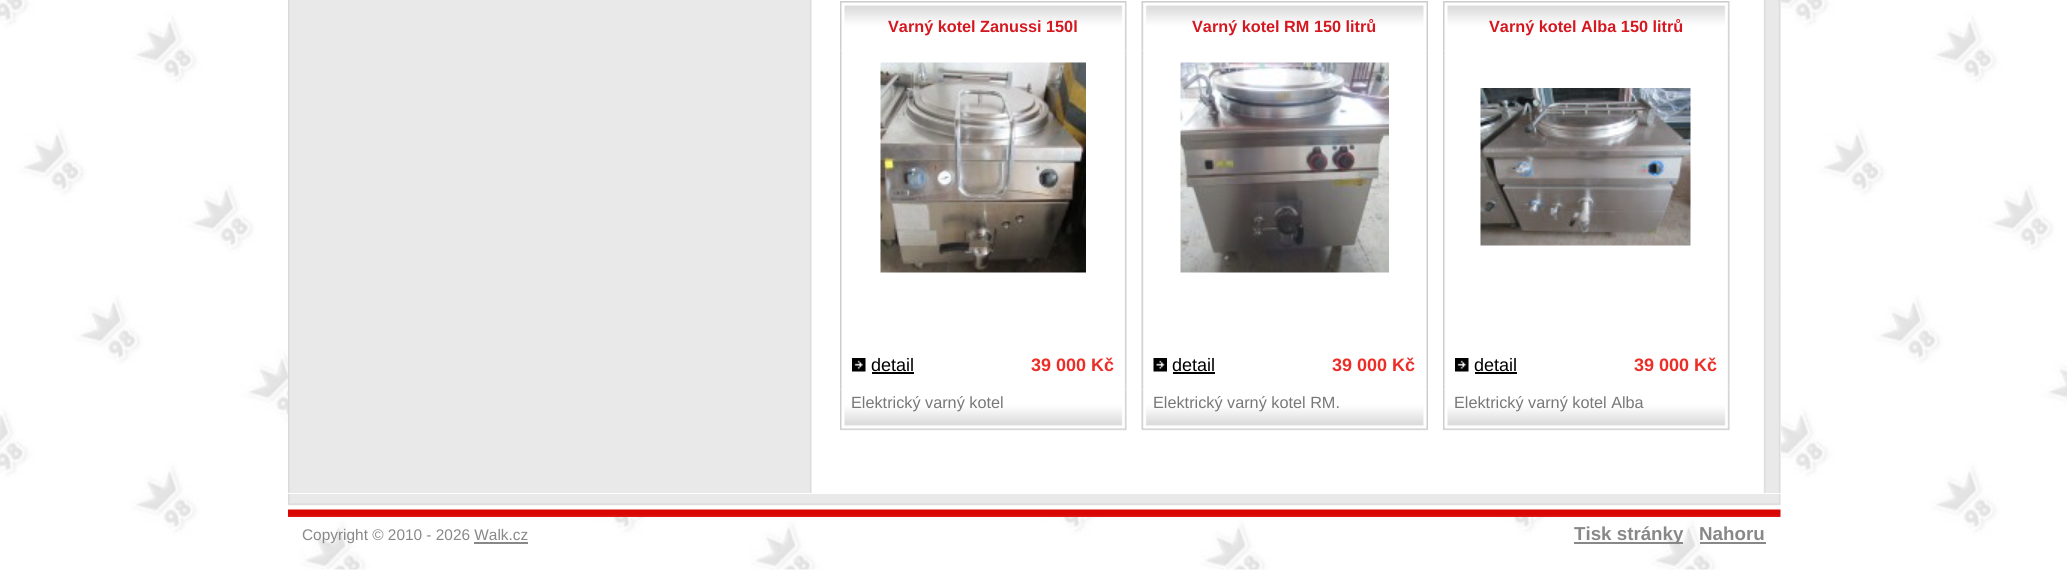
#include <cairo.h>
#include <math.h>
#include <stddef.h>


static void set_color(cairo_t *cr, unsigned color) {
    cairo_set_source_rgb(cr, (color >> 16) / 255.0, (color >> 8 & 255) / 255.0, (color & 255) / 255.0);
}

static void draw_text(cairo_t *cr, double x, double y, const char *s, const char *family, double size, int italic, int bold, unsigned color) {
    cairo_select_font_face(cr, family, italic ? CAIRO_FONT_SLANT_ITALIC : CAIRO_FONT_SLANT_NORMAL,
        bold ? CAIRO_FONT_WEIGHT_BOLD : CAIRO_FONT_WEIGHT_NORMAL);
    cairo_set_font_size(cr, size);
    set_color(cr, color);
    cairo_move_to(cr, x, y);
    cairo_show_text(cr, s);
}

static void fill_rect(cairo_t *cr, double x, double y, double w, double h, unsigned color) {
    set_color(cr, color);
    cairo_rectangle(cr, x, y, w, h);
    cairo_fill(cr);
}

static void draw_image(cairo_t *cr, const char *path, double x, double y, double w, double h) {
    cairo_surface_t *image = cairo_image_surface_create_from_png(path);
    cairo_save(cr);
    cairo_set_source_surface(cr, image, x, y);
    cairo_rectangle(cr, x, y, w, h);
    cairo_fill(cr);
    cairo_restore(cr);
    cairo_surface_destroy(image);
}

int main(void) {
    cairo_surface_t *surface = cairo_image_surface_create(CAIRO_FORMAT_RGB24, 2067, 570);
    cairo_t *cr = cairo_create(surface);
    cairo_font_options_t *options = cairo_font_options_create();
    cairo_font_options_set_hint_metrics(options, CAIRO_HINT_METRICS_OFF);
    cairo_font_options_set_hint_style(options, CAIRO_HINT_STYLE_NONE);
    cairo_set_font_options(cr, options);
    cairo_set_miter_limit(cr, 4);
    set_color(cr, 0xFFFFFF);
    cairo_paint(cr);
    draw_image(cr, "assets/img1.png", 0, 0, 2067, 570);
    fill_rect(cr, 288, 0, 1493, 494, 0xFFFFFF);
    draw_image(cr, "assets/img2.png", 288, 0, 1493, 493);
    draw_image(cr, "assets/img3.png", 840, 1, 287, 50);
    draw_text(cr, 888, 32, "Varný kotel Zanussi 150l", "Liberation Sans", 16.25, 0, 1, 0xD51820);
    draw_image(cr, "assets/img4.png", 1141, 1, 287, 50);
    draw_text(cr, 1192, 32, "Varný kotel RM 150 litrů", "Liberation Sans", 16.25, 0, 1, 0xD51820);
    draw_image(cr, "assets/img3.png", 1443, 1, 287, 50);
    draw_text(cr, 1489, 32, "Varný kotel Alba 150 litrů", "Liberation Sans", 16.25, 0, 1, 0xD51820);
    draw_image(cr, "assets/img5.png", 840, 50, 287, 242);
    draw_image(cr, "assets/img6.png", 880, 62, 206, 211);
    draw_image(cr, "assets/img7.png", 1141, 50, 287, 242);
    draw_image(cr, "assets/img8.png", 1180, 62, 209, 211);
    draw_image(cr, "assets/img5.png", 1443, 50, 287, 242);
    draw_image(cr, "assets/img9.png", 1480, 88, 211, 158);
    draw_image(cr, "assets/img10.png", 840, 292, 287, 48);
    draw_image(cr, "assets/img11.png", 1141, 292, 287, 48);
    draw_image(cr, "assets/img10.png", 1443, 292, 287, 48);
    draw_image(cr, "assets/img12.png", 840, 340, 287, 50);
    draw_image(cr, "assets/img13.png", 852, 358, 14, 14);
    draw_text(cr, 871, 371, "detail", "Liberation Sans", 18, 0, 0, 0x000000);
    fill_rect(cr, 872, 372, 42, 2, 0x000000);
    draw_text(cr, 1031, 371, "39 000 Kč", "Liberation Sans", 18, 0, 1, 0xEB2E28);
    draw_image(cr, "assets/img14.png", 1141, 340, 287, 50);
    draw_image(cr, "assets/img15.png", 1153, 358, 14, 14);
    draw_text(cr, 1172, 371, "detail", "Liberation Sans", 18, 0, 0, 0x000000);
    fill_rect(cr, 1173, 372, 42, 2, 0x000000);
    draw_text(cr, 1332, 371, "39 000 Kč", "Liberation Sans", 18, 0, 1, 0xEB2E28);
    draw_image(cr, "assets/img12.png", 1443, 340, 287, 50);
    draw_image(cr, "assets/img13.png", 1455, 358, 14, 14);
    draw_text(cr, 1474, 371, "detail", "Liberation Sans", 18, 0, 0, 0x000000);
    fill_rect(cr, 1475, 372, 42, 2, 0x000000);
    draw_text(cr, 1634, 371, "39 000 Kč", "Liberation Sans", 18, 0, 1, 0xEB2E28);
    draw_image(cr, "assets/img16.png", 840, 389, 287, 42);
    draw_text(cr, 851, 408, "Elektrický varný kotel", "Liberation Sans", 16.25, 0, 0, 0x777777);
    draw_image(cr, "assets/img17.png", 1141, 389, 287, 42);
    draw_text(cr, 1153, 408, "Elektrický varný kotel RM.", "Liberation Sans", 16.25, 0, 0, 0x777777);
    draw_image(cr, "assets/img16.png", 1443, 389, 287, 42);
    draw_text(cr, 1454, 408, "Elektrický varný kotel Alba", "Liberation Sans", 16.25, 0, 0, 0x777777);
    draw_image(cr, "assets/img18.png", 288, 494, 1493, 23);
    draw_text(cr, 302, 540, "Copyright © 2010 - 2026 Walk.cz", "Liberation Sans", 15.4, 0, 0, 0x888888);
    fill_rect(cr, 474, 542, 54, 2, 0x888888);
    fill_rect(cr, 1574, 542, 109, 2, 0x888888);
    draw_text(cr, 1574, 540, "Tisk stránky", "Liberation Sans", 18.75, 0, 1, 0x888888);
    draw_text(cr, 1699, 540, "Nahoru", "Liberation Sans", 18.75, 0, 1, 0x888888);
    fill_rect(cr, 1700, 542, 66, 2, 0x888888);
    cairo_surface_write_to_png(surface, "output.png");
    cairo_font_options_destroy(options);
    cairo_destroy(cr);
    cairo_surface_destroy(surface);
    return 0;
}
